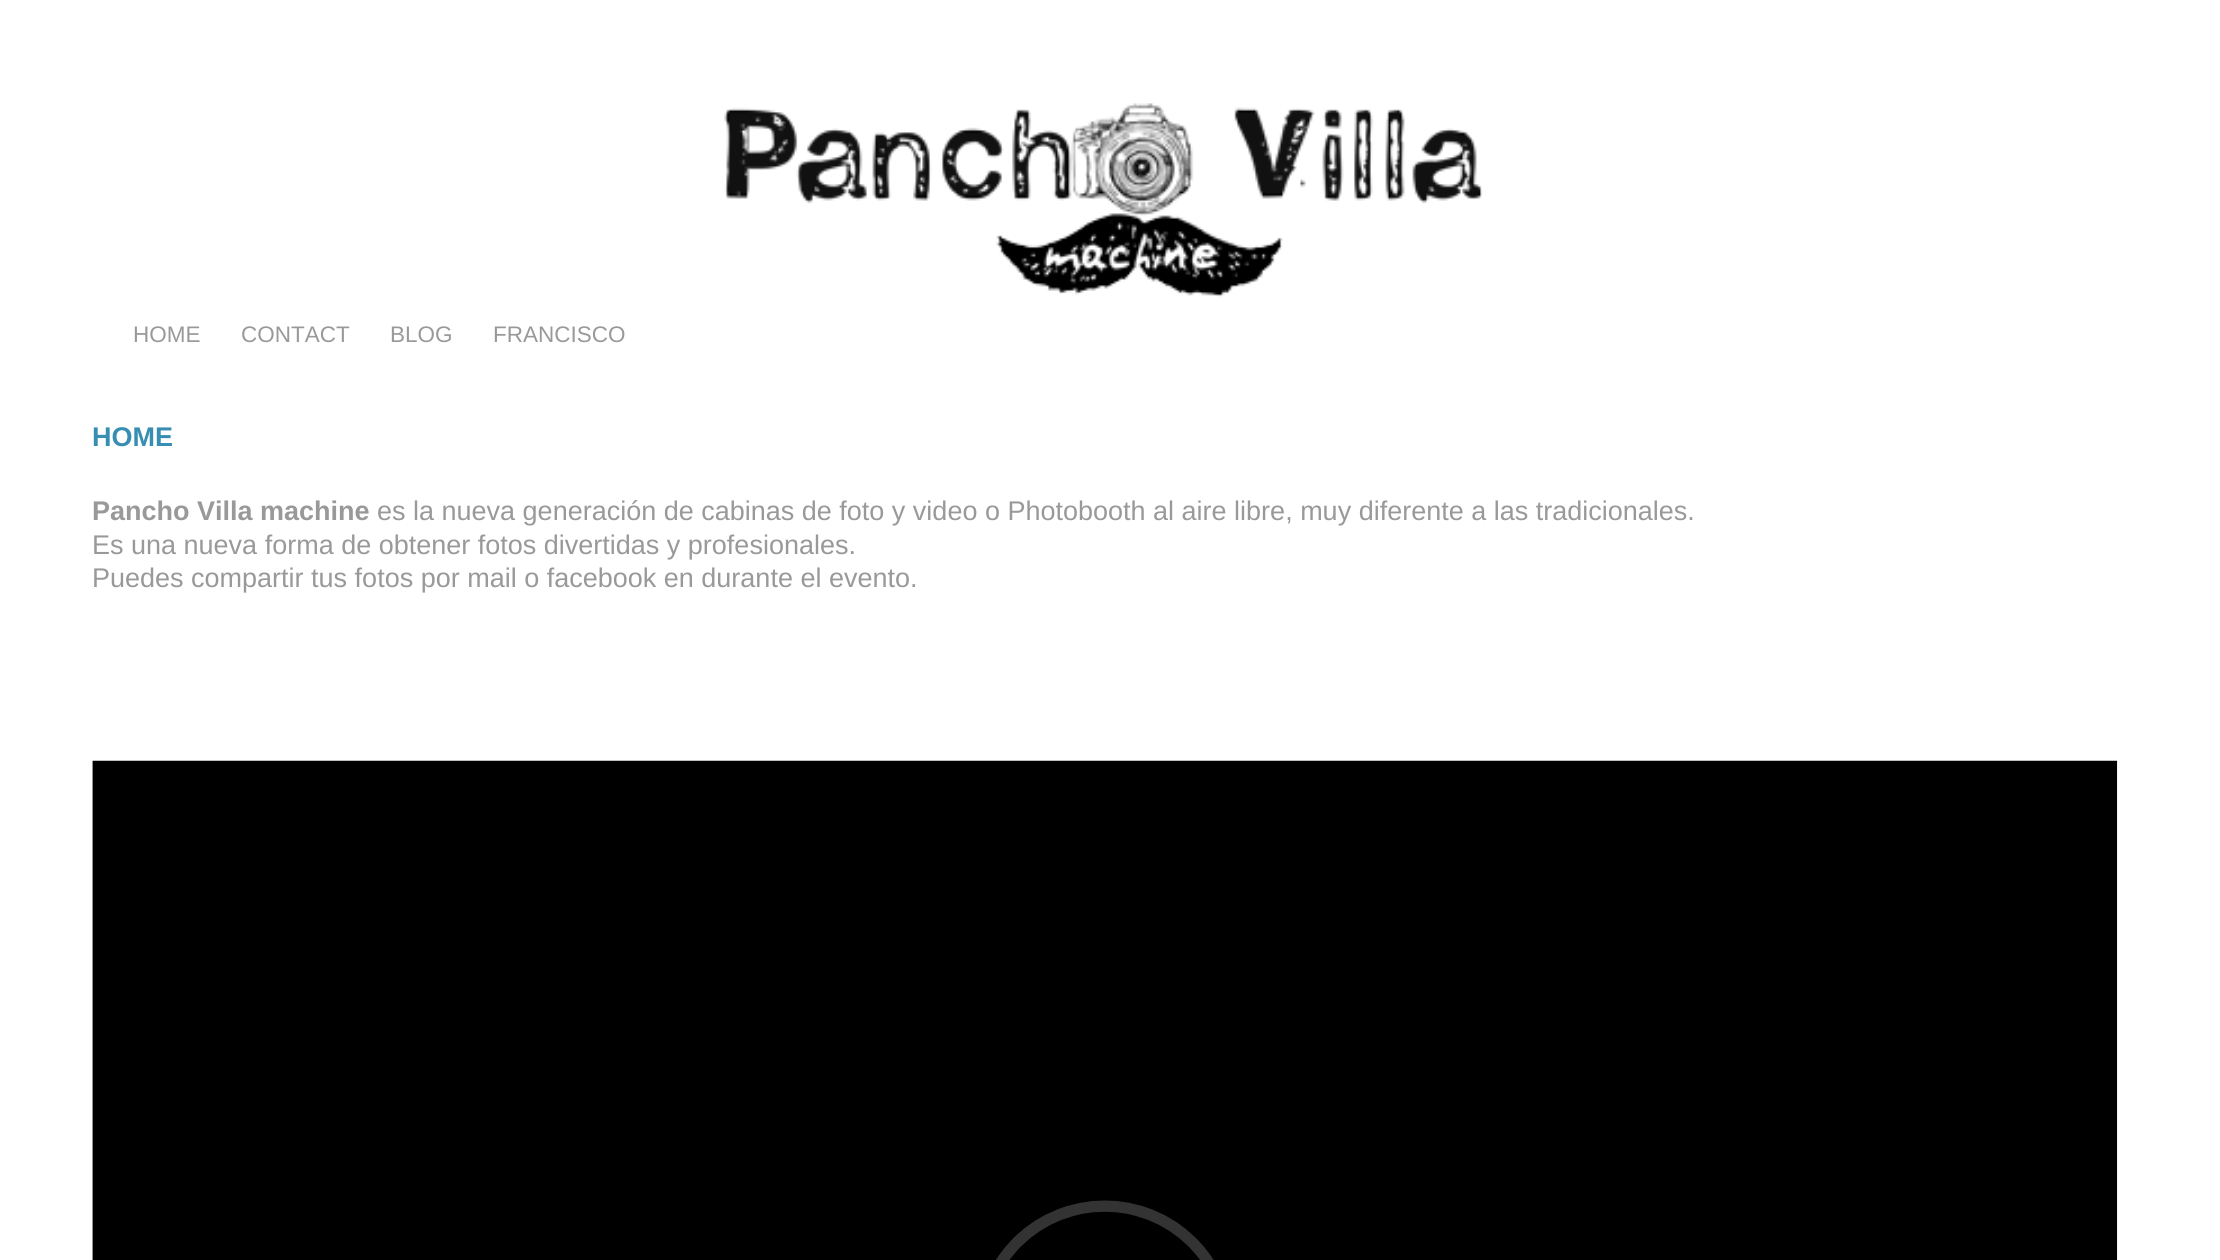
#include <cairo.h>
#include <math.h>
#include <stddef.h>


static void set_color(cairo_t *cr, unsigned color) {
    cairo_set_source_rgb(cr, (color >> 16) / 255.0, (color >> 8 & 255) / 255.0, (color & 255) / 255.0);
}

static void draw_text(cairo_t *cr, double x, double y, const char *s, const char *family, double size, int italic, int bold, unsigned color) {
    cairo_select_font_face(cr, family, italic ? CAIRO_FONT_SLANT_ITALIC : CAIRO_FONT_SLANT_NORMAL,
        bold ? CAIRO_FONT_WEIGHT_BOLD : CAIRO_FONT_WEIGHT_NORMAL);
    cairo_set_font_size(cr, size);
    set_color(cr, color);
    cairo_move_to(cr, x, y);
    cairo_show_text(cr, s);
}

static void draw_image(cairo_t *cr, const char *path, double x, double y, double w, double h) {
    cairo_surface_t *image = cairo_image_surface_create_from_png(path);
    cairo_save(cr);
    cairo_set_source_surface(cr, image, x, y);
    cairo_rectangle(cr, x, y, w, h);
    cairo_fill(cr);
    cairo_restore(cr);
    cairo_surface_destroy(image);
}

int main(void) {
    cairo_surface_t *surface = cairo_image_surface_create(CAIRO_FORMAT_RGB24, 2220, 1260);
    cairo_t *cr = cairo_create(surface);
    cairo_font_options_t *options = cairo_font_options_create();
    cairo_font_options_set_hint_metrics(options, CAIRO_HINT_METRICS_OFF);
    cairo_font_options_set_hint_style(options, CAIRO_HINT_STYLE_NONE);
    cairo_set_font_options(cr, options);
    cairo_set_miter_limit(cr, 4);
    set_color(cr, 0xFFFFFF);
    cairo_paint(cr);
    draw_image(cr, "assets/img1.png", 724, 103, 759, 195);
    draw_text(cr, 133, 342, "HOME", "Liberation Sans", 22.5, 0, 0, 0x999999);
    draw_text(cr, 241, 342, "CONTACT", "Liberation Sans", 22.5, 0, 0, 0x999999);
    draw_text(cr, 390, 342, "BLOG", "Liberation Sans", 22.5, 0, 0, 0x999999);
    draw_text(cr, 493, 342, "FRANCISCO", "Liberation Sans", 22.5, 0, 0, 0x999999);
    draw_text(cr, 92, 446, "HOME", "Liberation Sans", 27, 0, 1, 0x388EB2);
    draw_text(cr, 92, 520, "Pancho Villa machine", "Liberation Sans", 27, 0, 1, 0x999999);
    draw_text(cr, 377, 520, "es la nueva generación de cabinas de foto y video o Photobooth al aire libre, muy diferente a las tradicionales.", "Liberation Sans", 27, 0, 0, 0x999999);
    draw_text(cr, 92, 554, "Es una nueva forma de obtener fotos divertidas y profesionales.", "Liberation Sans", 27, 0, 0, 0x999999);
    draw_text(cr, 92, 587, "Puedes compartir tus fotos por mail o facebook en durante el evento.", "Liberation Sans", 27, 0, 0, 0x999999);
    draw_image(cr, "assets/img2.png", 92, 760, 2026, 500);
    cairo_surface_write_to_png(surface, "output.png");
    cairo_font_options_destroy(options);
    cairo_destroy(cr);
    cairo_surface_destroy(surface);
    return 0;
}
